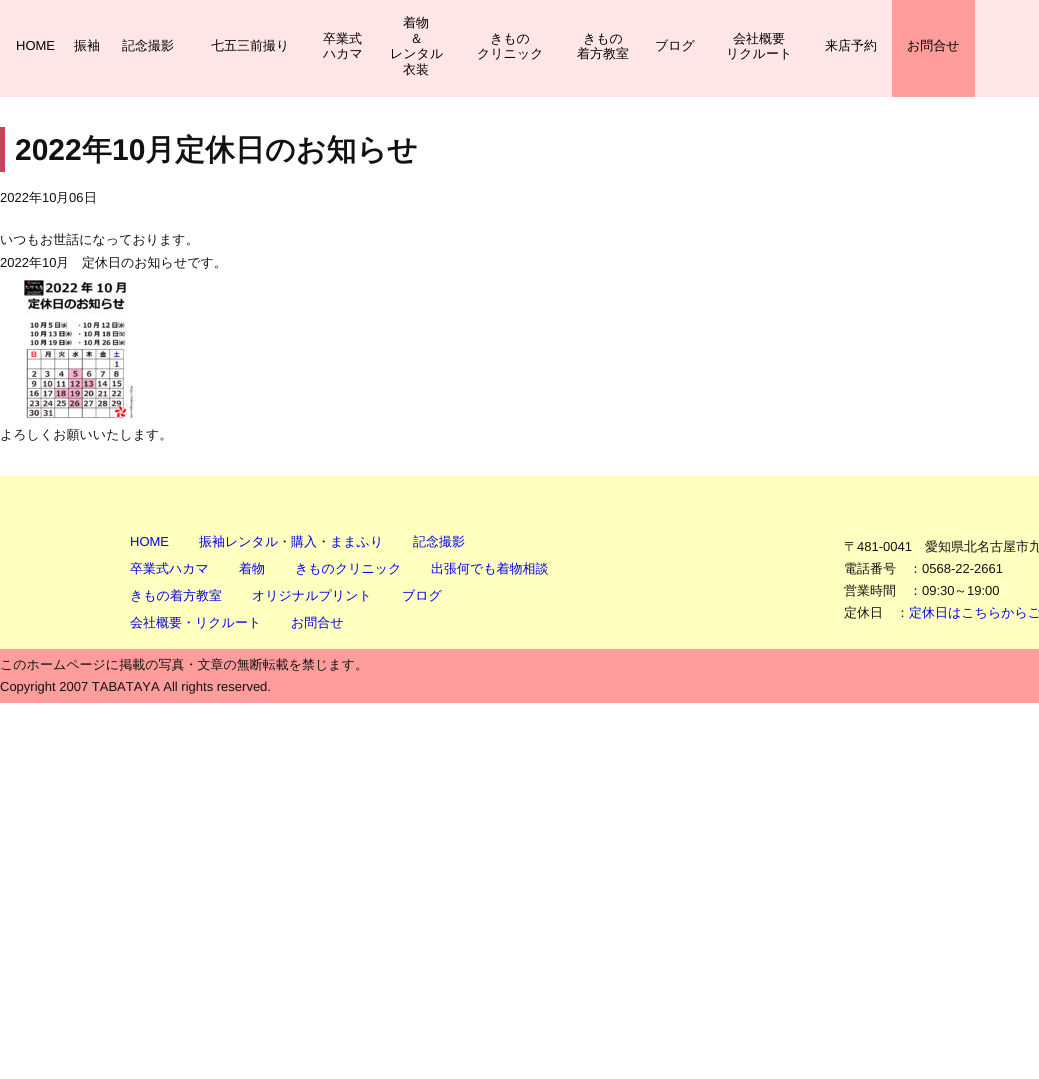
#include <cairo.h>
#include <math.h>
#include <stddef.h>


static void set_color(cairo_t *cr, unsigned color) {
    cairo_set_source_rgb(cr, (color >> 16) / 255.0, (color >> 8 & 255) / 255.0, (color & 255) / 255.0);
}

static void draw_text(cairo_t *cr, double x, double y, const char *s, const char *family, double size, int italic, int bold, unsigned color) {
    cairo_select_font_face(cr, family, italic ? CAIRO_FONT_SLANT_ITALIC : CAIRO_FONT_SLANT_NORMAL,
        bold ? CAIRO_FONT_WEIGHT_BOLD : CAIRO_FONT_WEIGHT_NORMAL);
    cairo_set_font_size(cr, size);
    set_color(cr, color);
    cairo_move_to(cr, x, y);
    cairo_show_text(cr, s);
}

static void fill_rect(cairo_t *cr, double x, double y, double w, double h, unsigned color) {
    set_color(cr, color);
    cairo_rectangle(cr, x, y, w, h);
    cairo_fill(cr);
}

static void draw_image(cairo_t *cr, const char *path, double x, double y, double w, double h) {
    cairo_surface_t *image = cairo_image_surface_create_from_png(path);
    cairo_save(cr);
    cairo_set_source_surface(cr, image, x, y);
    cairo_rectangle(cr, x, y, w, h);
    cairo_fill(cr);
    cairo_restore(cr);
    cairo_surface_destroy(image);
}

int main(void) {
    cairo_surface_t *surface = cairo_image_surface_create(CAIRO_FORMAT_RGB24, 1039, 1079);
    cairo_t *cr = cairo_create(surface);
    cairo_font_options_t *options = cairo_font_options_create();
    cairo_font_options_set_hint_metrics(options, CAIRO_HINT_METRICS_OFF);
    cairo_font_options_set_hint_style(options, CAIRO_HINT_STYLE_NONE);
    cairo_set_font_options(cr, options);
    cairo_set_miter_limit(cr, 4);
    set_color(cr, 0xFFFFFF);
    cairo_paint(cr);
    fill_rect(cr, 0, 0, 1039, 97, 0xFFE6E6);
    draw_text(cr, 16, 50, "HOME", "Liberation Sans", 13, 0, 0, 0x000000);
    draw_text(cr, 74, 50, "振袖", "WenQuanYi Zen Hei Medium", 13, 0, 0, 0x000000);
    draw_text(cr, 122, 50, "記念撮影", "WenQuanYi Zen Hei Medium", 13, 0, 0, 0x000000);
    draw_text(cr, 211, 50, "七五三前撮り", "WenQuanYi Zen Hei Medium", 13, 0, 0, 0x000000);
    draw_text(cr, 323, 43, "卒業式", "WenQuanYi Zen Hei Medium", 13, 0, 0, 0x000000);
    draw_text(cr, 323, 58, "ハカマ", "WenQuanYi Zen Hei Medium", 13, 0, 0, 0x000000);
    draw_text(cr, 403, 27, "着物", "WenQuanYi Zen Hei Medium", 13, 0, 0, 0x000000);
    draw_text(cr, 410, 43, "＆", "WenQuanYi Zen Hei Medium", 13, 0, 0, 0x000000);
    draw_text(cr, 390, 58, "レンタル", "WenQuanYi Zen Hei Medium", 13, 0, 0, 0x000000);
    draw_text(cr, 403, 74, "衣装", "WenQuanYi Zen Hei Medium", 13, 0, 0, 0x000000);
    draw_text(cr, 490, 43, "きもの", "WenQuanYi Zen Hei Medium", 13, 0, 0, 0x000000);
    draw_text(cr, 477, 58, "クリニック", "WenQuanYi Zen Hei Medium", 13, 0, 0, 0x000000);
    draw_text(cr, 583, 43, "きもの", "WenQuanYi Zen Hei Medium", 13, 0, 0, 0x000000);
    draw_text(cr, 577, 58, "着方教室", "WenQuanYi Zen Hei Medium", 13, 0, 0, 0x000000);
    draw_text(cr, 655, 50, "ブログ", "WenQuanYi Zen Hei Medium", 13, 0, 0, 0x000000);
    draw_text(cr, 733, 43, "会社概要", "WenQuanYi Zen Hei Medium", 13, 0, 0, 0x000000);
    draw_text(cr, 726, 58, "リクルート", "WenQuanYi Zen Hei Medium", 13, 0, 0, 0x000000);
    draw_text(cr, 825, 50, "来店予約", "WenQuanYi Zen Hei Medium", 13, 0, 0, 0x000000);
    fill_rect(cr, 892, 0, 83, 97, 0xFF9D9D);
    draw_text(cr, 907, 50, "お問合せ", "WenQuanYi Zen Hei Medium", 13, 0, 0, 0x000000);
    fill_rect(cr, 0, 127, 5, 45, 0xC54459);
    draw_text(cr, 15, 160, "2022", "Liberation Sans", 30, 0, 1, 0x111111);
    draw_text(cr, 82, 160, "年", "WenQuanYi Zen Hei", 30, 0, 1, 0x111111);
    draw_text(cr, 112, 160, "10", "Liberation Sans", 30, 0, 1, 0x111111);
    draw_text(cr, 145, 160, "月定休日のお知らせ", "WenQuanYi Zen Hei", 30, 0, 1, 0x111111);
    draw_text(cr, 0, 202, "2022", "Liberation Sans", 13, 0, 0, 0x111111);
    draw_text(cr, 29, 202, "年", "WenQuanYi Zen Hei Medium", 13, 0, 0, 0x111111);
    draw_text(cr, 42, 202, "10", "Liberation Sans", 13, 0, 0, 0x111111);
    draw_text(cr, 56, 202, "月", "WenQuanYi Zen Hei Medium", 13, 0, 0, 0x111111);
    draw_text(cr, 69, 202, "06", "Liberation Sans", 13, 0, 0, 0x111111);
    draw_text(cr, 84, 202, "日", "WenQuanYi Zen Hei Medium", 13, 0, 0, 0x111111);
    draw_text(cr, 0, 244, "いつもお世話になっております。", "WenQuanYi Zen Hei Medium", 13, 0, 0, 0x111111);
    draw_text(cr, 0, 267, "2022", "Liberation Sans", 13, 0, 0, 0x111111);
    draw_text(cr, 29, 267, "年", "WenQuanYi Zen Hei Medium", 13, 0, 0, 0x111111);
    draw_text(cr, 42, 267, "10", "Liberation Sans", 13, 0, 0, 0x111111);
    draw_text(cr, 56, 267, "月　定休日のお知らせです。", "WenQuanYi Zen Hei Medium", 13, 0, 0, 0x111111);
    draw_image(cr, "assets/img1.png", 24, 274, 112, 145);
    draw_text(cr, 0, 439, "よろしくお願いいたします。", "WenQuanYi Zen Hei Medium", 13, 0, 0, 0x111111);
    fill_rect(cr, 0, 476, 1039, 173, 0xFFFFBF);
    draw_text(cr, 130, 546, "HOME", "Liberation Sans", 13, 0, 0, 0x0000EE);
    draw_text(cr, 199, 546, "振袖レンタル", "WenQuanYi Zen Hei Medium", 13, 0, 0, 0x0000EE);
    draw_text(cr, 278, 546, "・", "WenQuanYi Zen Hei Medium", 13, 0, 0, 0x111111);
    draw_text(cr, 291, 546, "購入", "WenQuanYi Zen Hei Medium", 13, 0, 0, 0x0000EE);
    draw_text(cr, 317, 546, "・", "WenQuanYi Zen Hei Medium", 13, 0, 0, 0x111111);
    draw_text(cr, 330, 546, "ままふり", "WenQuanYi Zen Hei Medium", 13, 0, 0, 0x0000EE);
    draw_text(cr, 413, 546, "記念撮影", "WenQuanYi Zen Hei Medium", 13, 0, 0, 0x0000EE);
    draw_text(cr, 130, 573, "卒業式ハカマ", "WenQuanYi Zen Hei Medium", 13, 0, 0, 0x0000EE);
    draw_text(cr, 239, 573, "着物", "WenQuanYi Zen Hei Medium", 13, 0, 0, 0x0000EE);
    draw_text(cr, 295, 573, "きものクリニック", "WenQuanYi Zen Hei Medium", 13, 0, 0, 0x0000EE);
    draw_text(cr, 431, 573, "出張何でも着物相談", "WenQuanYi Zen Hei Medium", 13, 0, 0, 0x0000EE);
    draw_text(cr, 130, 600, "きもの着方教室", "WenQuanYi Zen Hei Medium", 13, 0, 0, 0x0000EE);
    draw_text(cr, 252, 600, "オリジナルプリント", "WenQuanYi Zen Hei Medium", 13, 0, 0, 0x0000EE);
    draw_text(cr, 402, 600, "ブログ", "WenQuanYi Zen Hei Medium", 13, 0, 0, 0x0000EE);
    draw_text(cr, 130, 627, "会社概要・リクルート", "WenQuanYi Zen Hei Medium", 13, 0, 0, 0x0000EE);
    draw_text(cr, 291, 627, "お問合せ", "WenQuanYi Zen Hei Medium", 13, 0, 0, 0x0000EE);
    draw_text(cr, 844, 551, "〒", "WenQuanYi Zen Hei Medium", 13, 0, 0, 0x111111);
    draw_text(cr, 857, 551, "481-0041", "Liberation Sans", 13, 0, 0, 0x111111);
    draw_text(cr, 925, 551, "愛知県北名古屋市九", "WenQuanYi Zen Hei Medium", 13, 0, 0, 0x111111);
    draw_text(cr, 844, 573, "電話番号　：", "WenQuanYi Zen Hei Medium", 13, 0, 0, 0x111111);
    draw_text(cr, 922, 573, "0568-22-2661", "Liberation Sans", 13, 0, 0, 0x111111);
    draw_text(cr, 844, 595, "営業時間　：", "WenQuanYi Zen Hei Medium", 13, 0, 0, 0x111111);
    draw_text(cr, 922, 595, "09:30", "Liberation Sans", 13, 0, 0, 0x111111);
    draw_text(cr, 954, 595, "～", "WenQuanYi Zen Hei Medium", 13, 0, 0, 0x111111);
    draw_text(cr, 967, 595, "19:00", "Liberation Sans", 13, 0, 0, 0x111111);
    draw_text(cr, 844, 617, "定休日　：", "WenQuanYi Zen Hei Medium", 13, 0, 0, 0x111111);
    draw_text(cr, 909, 617, "定休日はこちらからご", "WenQuanYi Zen Hei Medium", 13, 0, 0, 0x0000EE);
    fill_rect(cr, 0, 649, 1039, 54, 0xFF9D9C);
    draw_text(cr, 0, 669, "このホームページに掲載の写真・文章の無断転載を禁じます。", "WenQuanYi Zen Hei Medium", 13, 0, 0, 0x111111);
    draw_text(cr, 0, 691, "Copyright 2007 TABATAYA All rights reserved.", "Liberation Sans", 13, 0, 0, 0x111111);
    cairo_surface_write_to_png(surface, "output.png");
    cairo_font_options_destroy(options);
    cairo_destroy(cr);
    cairo_surface_destroy(surface);
    return 0;
}
